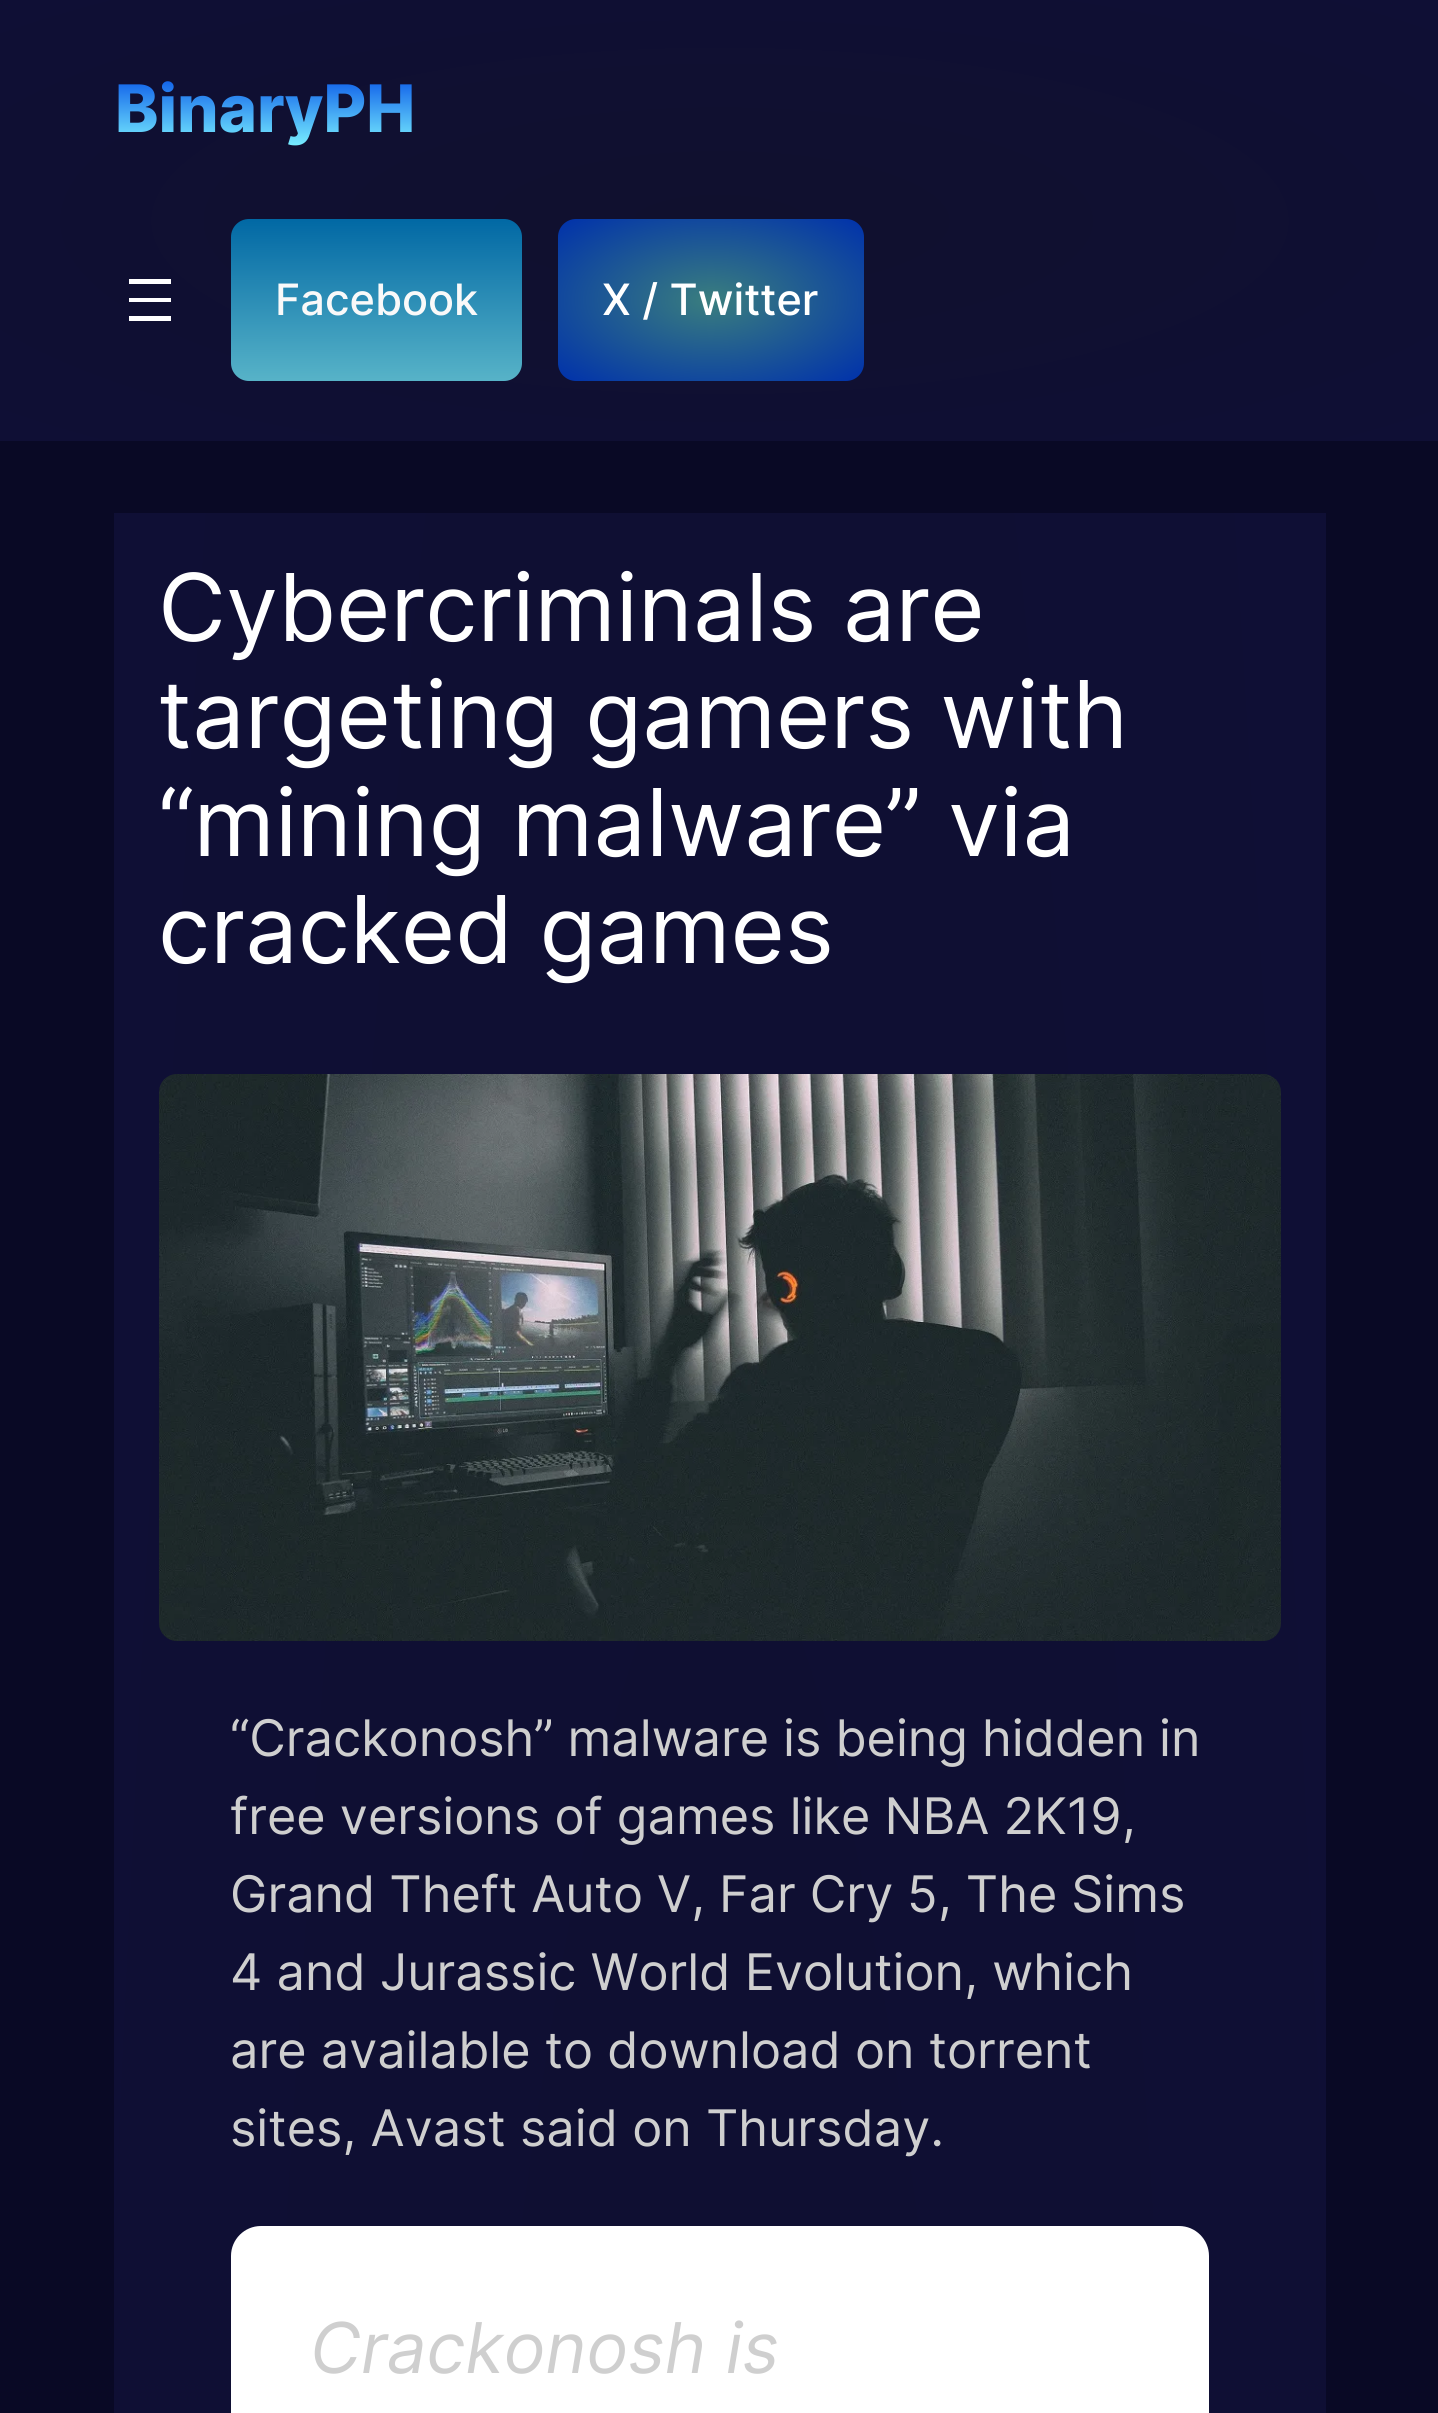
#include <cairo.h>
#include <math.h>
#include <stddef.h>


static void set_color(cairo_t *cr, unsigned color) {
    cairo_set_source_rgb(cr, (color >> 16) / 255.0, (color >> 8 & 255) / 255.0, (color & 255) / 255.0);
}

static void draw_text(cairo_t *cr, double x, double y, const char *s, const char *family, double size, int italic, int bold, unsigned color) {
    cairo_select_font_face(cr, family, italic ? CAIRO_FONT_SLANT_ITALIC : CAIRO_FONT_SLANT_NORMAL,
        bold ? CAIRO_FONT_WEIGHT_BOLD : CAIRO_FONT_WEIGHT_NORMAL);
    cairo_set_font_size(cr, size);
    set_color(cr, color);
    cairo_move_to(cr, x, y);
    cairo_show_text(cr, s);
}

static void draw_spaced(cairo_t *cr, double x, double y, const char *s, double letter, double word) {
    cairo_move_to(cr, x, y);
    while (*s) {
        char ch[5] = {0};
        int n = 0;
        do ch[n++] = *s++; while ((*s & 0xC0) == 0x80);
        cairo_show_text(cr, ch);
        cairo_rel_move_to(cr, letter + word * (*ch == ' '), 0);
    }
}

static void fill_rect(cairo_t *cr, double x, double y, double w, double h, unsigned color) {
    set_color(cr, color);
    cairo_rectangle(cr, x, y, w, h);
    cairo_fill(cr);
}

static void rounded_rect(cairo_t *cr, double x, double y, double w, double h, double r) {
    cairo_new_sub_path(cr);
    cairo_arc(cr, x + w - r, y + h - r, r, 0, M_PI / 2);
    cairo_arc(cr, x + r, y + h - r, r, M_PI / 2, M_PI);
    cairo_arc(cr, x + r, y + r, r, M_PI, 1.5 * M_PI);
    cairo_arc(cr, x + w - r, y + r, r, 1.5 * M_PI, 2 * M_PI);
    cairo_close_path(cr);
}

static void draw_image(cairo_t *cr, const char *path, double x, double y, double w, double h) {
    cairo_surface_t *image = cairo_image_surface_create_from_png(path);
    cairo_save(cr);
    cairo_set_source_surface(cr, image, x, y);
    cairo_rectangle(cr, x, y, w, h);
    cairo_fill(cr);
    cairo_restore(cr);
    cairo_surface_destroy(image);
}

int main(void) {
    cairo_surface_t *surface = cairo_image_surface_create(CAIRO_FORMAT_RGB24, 1438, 2413);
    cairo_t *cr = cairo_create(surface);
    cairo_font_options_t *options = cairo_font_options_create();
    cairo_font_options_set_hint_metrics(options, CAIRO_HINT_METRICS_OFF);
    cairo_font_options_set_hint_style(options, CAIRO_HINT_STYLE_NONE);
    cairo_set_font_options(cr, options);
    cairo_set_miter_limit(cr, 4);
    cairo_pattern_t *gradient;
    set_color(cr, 0x090925);
    cairo_paint(cr);
    gradient = cairo_pattern_create_radial(0, 0, 0, 0, 0, 1);
    cairo_pattern_set_matrix(gradient, &(cairo_matrix_t){1.0 / 1018, 0, 0, 1.0 / 312, -1.0 * 720 / 1018, -1.0 * 221 / 312});
    cairo_pattern_add_color_stop_rgba(gradient, 0, 0.063, 0.063, 0.18, 1);
    cairo_pattern_add_color_stop_rgba(gradient, 1, 0.059, 0.059, 0.208, 1);
    cairo_set_source(cr, gradient);
    cairo_pattern_destroy(gradient);
    cairo_rectangle(cr, 0, 0, 1438, 441);
    cairo_fill(cr);
    cairo_select_font_face(cr, "Inter ExtraBold", CAIRO_FONT_SLANT_NORMAL, CAIRO_FONT_WEIGHT_NORMAL);
    cairo_set_font_size(cr, 65.5);
    gradient = cairo_pattern_create_linear(265, 69, 265, 147);
    cairo_pattern_add_color_stop_rgba(gradient, 0, 0.004, 0.298, 0.902, 1);
    cairo_pattern_add_color_stop_rgba(gradient, 1, 0.478, 0.941, 1, 1);
    cairo_set_source(cr, gradient);
    cairo_pattern_destroy(gradient);
    cairo_move_to(cr, 115, 132);
    cairo_show_text(cr, "BinaryPH");
    fill_rect(cr, 129, 279, 42, 5, 0xFFFFFF);
    fill_rect(cr, 129, 298, 42, 4, 0xFFFFFF);
    fill_rect(cr, 129, 316, 42, 5, 0xFFFFFF);
    gradient = cairo_pattern_create_linear(377, 219, 377, 381);
    cairo_pattern_add_color_stop_rgba(gradient, 0, 0.004, 0.408, 0.643, 1);
    cairo_pattern_add_color_stop_rgba(gradient, 1, 0.341, 0.702, 0.784, 1);
    cairo_set_source(cr, gradient);
    cairo_pattern_destroy(gradient);
    rounded_rect(cr, 231, 219, 291, 162, 18);
    cairo_fill(cr);
    draw_text(cr, 275, 315, "Facebook", "Inter Medium", 43.25, 0, 0, 0xF9F9F9);
    gradient = cairo_pattern_create_radial(0, 0, 0, 0, 0, 1);
    cairo_pattern_set_matrix(gradient, &(cairo_matrix_t){1.0 / 216, 0, 0, 1.0 / 115, -1.0 * 711 / 216, -1.0 * 300 / 115});
    cairo_pattern_add_color_stop_rgba(gradient, 0, 0.227, 0.494, 0.494, 1);
    cairo_pattern_add_color_stop_rgba(gradient, 1, 0, 0.192, 0.671, 1);
    cairo_set_source(cr, gradient);
    cairo_pattern_destroy(gradient);
    rounded_rect(cr, 558, 219, 306, 162, 18);
    cairo_fill(cr);
    draw_text(cr, 602, 315, "X / Twitter", "Inter Medium", 43.25, 0, 0, 0xFFFFFF);
    gradient = cairo_pattern_create_radial(0, 0, 0, 0, 0, 1);
    cairo_pattern_set_matrix(gradient, &(cairo_matrix_t){1.0 / 857, 0, 0, 1.0 / 16158, -1.0 * 720 / 857, -1.0 * 11939 / 16158});
    cairo_pattern_add_color_stop_rgba(gradient, 0, 0.063, 0.063, 0.18, 1);
    cairo_pattern_add_color_stop_rgba(gradient, 1, 0.059, 0.059, 0.208, 1);
    cairo_set_source(cr, gradient);
    cairo_pattern_destroy(gradient);
    cairo_rectangle(cr, 114, 513, 1212, 1900);
    cairo_fill(cr);
    draw_text(cr, 158, 641, "Cybercriminals are", "Inter", 93.5, 0, 0, 0xFFFFFF);
    draw_text(cr, 158, 748, "targeting gamers with", "Inter", 93.5, 0, 0, 0xFFFFFF);
    draw_text(cr, 158, 856, "“mining malware” via", "Inter", 93.5, 0, 0, 0xFFFFFF);
    draw_text(cr, 158, 963, "cracked games", "Inter", 93.5, 0, 0, 0xFFFFFF);
    draw_image(cr, "assets/img1.png", 159, 1074, 1122, 567);
    cairo_set_font_size(cr, 50.4);
    set_color(cr, 0xCFCFCF);
    draw_spaced(cr, 230, 1756, "“Crackonosh” malware is being hidden in", 0, -0.25);
    draw_text(cr, 230, 1834, "free versions of games like NBA 2K19,", "Inter", 50.4, 0, 0, 0xCFCFCF);
    draw_spaced(cr, 230, 1912, "Grand Theft Auto V, Far Cry 5, The Sims", 0, -0.25);
    draw_text(cr, 230, 1990, "4 and Jurassic World Evolution, which", "Inter", 50.4, 0, 0, 0xCFCFCF);
    draw_text(cr, 230, 2068, "are available to download on torrent", "Inter", 50.4, 0, 0, 0xCFCFCF);
    draw_text(cr, 230, 2146, "sites, Avast said on Thursday.", "Inter", 50.4, 0, 0, 0xCFCFCF);
    set_color(cr, 0xFFFFFF);
    rounded_rect(cr, 231, 2226, 978, 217, 30);
    cairo_fill(cr);
    draw_text(cr, 310, 2373, "Crackonosh is", "Inter", 70, 1, 0, 0xCFCFCF);
    cairo_surface_write_to_png(surface, "output.png");
    cairo_font_options_destroy(options);
    cairo_destroy(cr);
    cairo_surface_destroy(surface);
    return 0;
}
